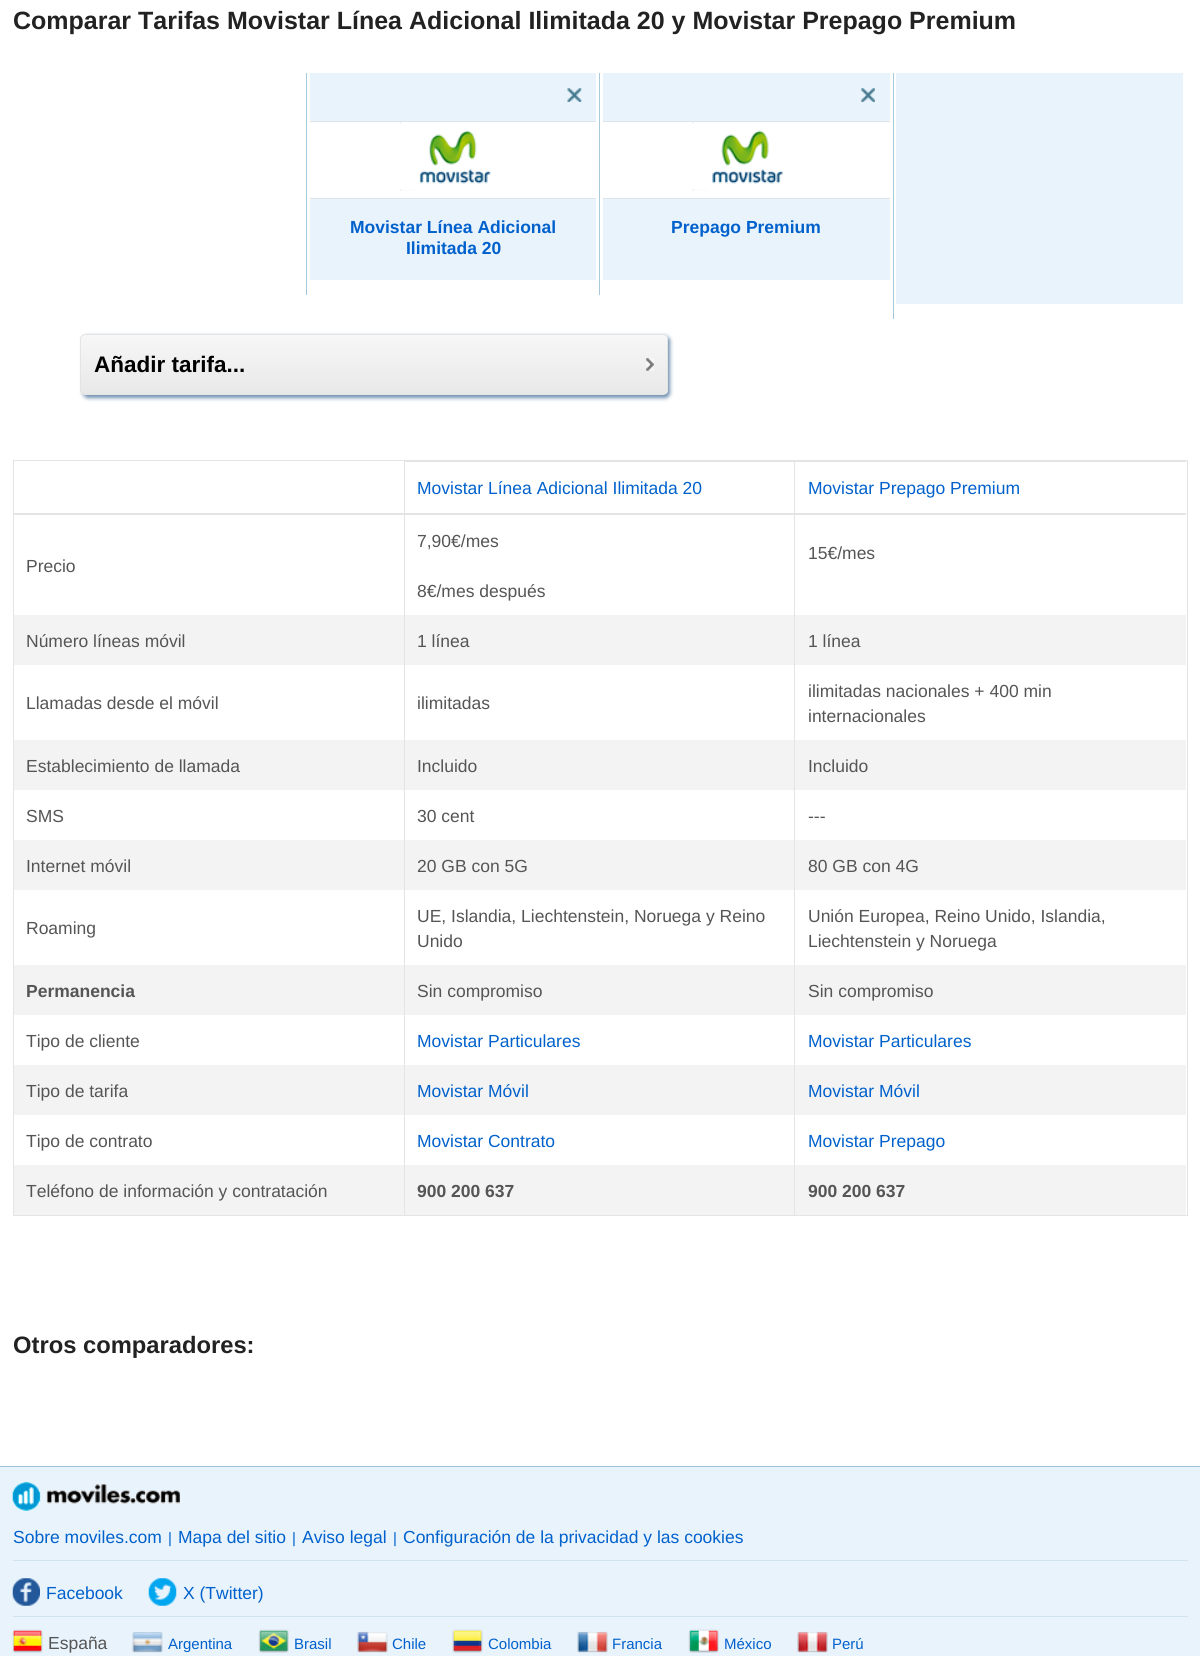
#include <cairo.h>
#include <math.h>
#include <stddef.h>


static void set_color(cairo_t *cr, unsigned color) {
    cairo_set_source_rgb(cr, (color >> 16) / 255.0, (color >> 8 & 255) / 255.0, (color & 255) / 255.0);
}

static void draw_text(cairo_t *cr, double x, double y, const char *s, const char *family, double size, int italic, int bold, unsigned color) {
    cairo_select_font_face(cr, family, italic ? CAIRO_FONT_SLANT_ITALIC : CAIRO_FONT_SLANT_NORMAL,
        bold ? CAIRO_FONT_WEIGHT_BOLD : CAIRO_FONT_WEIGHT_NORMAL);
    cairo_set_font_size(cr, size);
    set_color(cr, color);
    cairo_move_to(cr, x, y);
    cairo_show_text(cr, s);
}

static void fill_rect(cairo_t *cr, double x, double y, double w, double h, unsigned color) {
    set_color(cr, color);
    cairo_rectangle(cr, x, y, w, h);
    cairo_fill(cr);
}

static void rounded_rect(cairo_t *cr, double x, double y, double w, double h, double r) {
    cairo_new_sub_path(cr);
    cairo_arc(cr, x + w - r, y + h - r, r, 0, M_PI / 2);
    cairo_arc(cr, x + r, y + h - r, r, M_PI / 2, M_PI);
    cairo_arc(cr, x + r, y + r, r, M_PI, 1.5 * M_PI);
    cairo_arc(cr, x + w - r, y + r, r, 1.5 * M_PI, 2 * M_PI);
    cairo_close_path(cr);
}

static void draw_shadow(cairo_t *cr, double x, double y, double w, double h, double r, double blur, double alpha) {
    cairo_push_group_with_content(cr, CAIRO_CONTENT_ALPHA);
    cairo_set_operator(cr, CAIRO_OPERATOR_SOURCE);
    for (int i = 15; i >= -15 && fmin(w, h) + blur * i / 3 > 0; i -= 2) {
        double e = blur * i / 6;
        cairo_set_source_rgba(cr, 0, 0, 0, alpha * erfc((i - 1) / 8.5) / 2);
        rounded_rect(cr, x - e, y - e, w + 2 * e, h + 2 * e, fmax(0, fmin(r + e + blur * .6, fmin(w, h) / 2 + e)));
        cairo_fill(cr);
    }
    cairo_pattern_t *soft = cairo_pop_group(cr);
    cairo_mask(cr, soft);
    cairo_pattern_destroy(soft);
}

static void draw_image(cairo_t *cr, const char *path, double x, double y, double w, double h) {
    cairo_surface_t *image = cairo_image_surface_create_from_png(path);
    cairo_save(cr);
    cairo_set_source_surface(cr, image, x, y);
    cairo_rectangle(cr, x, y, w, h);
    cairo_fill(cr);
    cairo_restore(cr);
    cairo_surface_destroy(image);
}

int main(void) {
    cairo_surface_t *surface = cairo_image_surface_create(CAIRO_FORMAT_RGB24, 1200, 1656);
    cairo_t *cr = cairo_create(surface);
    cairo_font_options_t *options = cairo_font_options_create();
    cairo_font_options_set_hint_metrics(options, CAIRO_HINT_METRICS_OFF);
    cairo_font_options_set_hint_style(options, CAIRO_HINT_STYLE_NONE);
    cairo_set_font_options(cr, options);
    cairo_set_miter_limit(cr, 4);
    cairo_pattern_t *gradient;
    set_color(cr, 0xFFFFFF);
    cairo_paint(cr);
    draw_text(cr, 13, 29, "Comparar Tarifas Movistar Línea Adicional Ilimitada 20 y Movistar Prepago Premium", "Liberation Sans", 25, 0, 1, 0x222222);
    fill_rect(cr, 306, 73, 1, 222, 0xA6C9DF);
    fill_rect(cr, 310, 73, 286, 207, 0xE9F3FC);
    draw_image(cr, "assets/img1.png", 567, 88, 15, 14);
    fill_rect(cr, 310, 122, 286, 76, 0xFFFFFF);
    fill_rect(cr, 310, 121, 286, 1, 0xDFE4E9);
    fill_rect(cr, 310, 198, 286, 1, 0xDFE4E9);
    draw_image(cr, "assets/img2.png", 400, 122, 91, 69);
    draw_text(cr, 350, 233, "Movistar Línea Adicional", "Liberation Sans", 17.5, 0, 1, 0x0061CC);
    draw_text(cr, 406, 254, "Ilimitada 20", "Liberation Sans", 17.5, 0, 1, 0x0061CC);
    fill_rect(cr, 599, 73, 1, 222, 0xA6C9DF);
    fill_rect(cr, 603, 73, 287, 207, 0xE9F3FC);
    draw_image(cr, "assets/img3.png", 861, 88, 14, 14);
    fill_rect(cr, 603, 122, 287, 76, 0xFFFFFF);
    fill_rect(cr, 603, 121, 287, 1, 0xDFE4E9);
    fill_rect(cr, 603, 198, 287, 1, 0xDFE4E9);
    draw_image(cr, "assets/img4.png", 692, 122, 91, 69);
    draw_text(cr, 671, 233, "Prepago Premium", "Liberation Sans", 17.5, 0, 1, 0x0061CC);
    fill_rect(cr, 893, 73, 1, 246, 0xA6C9DF);
    fill_rect(cr, 896, 73, 287, 231, 0xE9F3FC);
    set_color(cr, 0x7090B0);
    draw_shadow(cr, 83, 336, 587, 62, 5, 2, 1);
    cairo_save(cr);
    rounded_rect(cr, 80, 334, 588, 61, 5);
    cairo_clip(cr);
    gradient = cairo_pattern_create_linear(374, 335, 374, 394);
    cairo_pattern_add_color_stop_rgba(gradient, 0, 0.969, 0.969, 0.969, 1);
    cairo_pattern_add_color_stop_rgba(gradient, 1, 0.91, 0.91, 0.91, 1);
    cairo_set_source(cr, gradient);
    cairo_pattern_destroy(gradient);
    cairo_rectangle(cr, 80, 335, 588, 59);
    cairo_fill(cr);
    cairo_restore(cr);
    rounded_rect(cr, 80.5, 334.5, 587, 60, 4.5);
    set_color(cr, 0xE4E4E4);
    cairo_set_line_width(cr, 1);
    cairo_stroke(cr);
    draw_text(cr, 94, 372, "Añadir tarifa...", "Liberation Sans", 22.5, 0, 1, 0x000000);
    draw_image(cr, "assets/img5.png", 646, 358, 8, 13);
    cairo_rectangle(cr, 13.5, 460.5, 1174, 755);
    set_color(cr, 0xE4E4E4);
    cairo_stroke(cr);
    fill_rect(cr, 404, 461, 1, 754, 0xE4E4E4);
    fill_rect(cr, 14, 513, 391, 2, 0xE4E4E4);
    fill_rect(cr, 405, 461, 781, 1, 0xE4E4E4);
    fill_rect(cr, 794, 461, 1, 754, 0xE4E4E4);
    fill_rect(cr, 405, 513, 781, 2, 0xE4E4E4);
    draw_text(cr, 417, 494, "Movistar Línea Adicional Ilimitada 20", "Liberation Sans", 17.5, 0, 0, 0x0061CC);
    draw_text(cr, 808, 494, "Movistar Prepago Premium", "Liberation Sans", 17.5, 0, 0, 0x0061CC);
    draw_text(cr, 417, 547, "7,90€/mes", "Liberation Sans", 17.5, 0, 0, 0x555555);
    draw_text(cr, 417, 597, "8€/mes después", "Liberation Sans", 17.5, 0, 0, 0x555555);
    draw_text(cr, 808, 559, "15€/mes", "Liberation Sans", 17.5, 0, 0, 0x555555);
    draw_text(cr, 26, 572, "Precio", "Liberation Sans", 17.5, 0, 0, 0x555555);
    fill_rect(cr, 14, 615, 390, 50, 0xF3F3F3);
    draw_text(cr, 26, 647, "Número líneas móvil", "Liberation Sans", 17.5, 0, 0, 0x555555);
    fill_rect(cr, 405, 615, 389, 50, 0xF3F3F3);
    draw_text(cr, 417, 647, "1 línea", "Liberation Sans", 17.5, 0, 0, 0x555555);
    fill_rect(cr, 795, 615, 391, 50, 0xF3F3F3);
    draw_text(cr, 808, 647, "1 línea", "Liberation Sans", 17.5, 0, 0, 0x555555);
    draw_text(cr, 26, 709, "Llamadas desde el móvil", "Liberation Sans", 17.5, 0, 0, 0x555555);
    draw_text(cr, 417, 709, "ilimitadas", "Liberation Sans", 17.5, 0, 0, 0x555555);
    draw_text(cr, 808, 697, "ilimitadas nacionales + 400 min", "Liberation Sans", 17.5, 0, 0, 0x555555);
    draw_text(cr, 808, 722, "internacionales", "Liberation Sans", 17.5, 0, 0, 0x555555);
    fill_rect(cr, 14, 740, 390, 50, 0xF3F3F3);
    draw_text(cr, 26, 772, "Establecimiento de llamada", "Liberation Sans", 17.5, 0, 0, 0x555555);
    fill_rect(cr, 405, 740, 389, 50, 0xF3F3F3);
    draw_text(cr, 417, 772, "Incluido", "Liberation Sans", 17.5, 0, 0, 0x555555);
    fill_rect(cr, 795, 740, 391, 50, 0xF3F3F3);
    draw_text(cr, 808, 772, "Incluido", "Liberation Sans", 17.5, 0, 0, 0x555555);
    draw_text(cr, 26, 822, "SMS", "Liberation Sans", 17.5, 0, 0, 0x555555);
    draw_text(cr, 417, 822, "30 cent", "Liberation Sans", 17.5, 0, 0, 0x555555);
    draw_text(cr, 808, 822, "---", "Liberation Sans", 17.5, 0, 0, 0x555555);
    fill_rect(cr, 14, 840, 390, 50, 0xF3F3F3);
    draw_text(cr, 26, 872, "Internet móvil", "Liberation Sans", 17.5, 0, 0, 0x555555);
    fill_rect(cr, 405, 840, 389, 50, 0xF3F3F3);
    draw_text(cr, 417, 872, "20 GB con 5G", "Liberation Sans", 17.5, 0, 0, 0x555555);
    fill_rect(cr, 795, 840, 391, 50, 0xF3F3F3);
    draw_text(cr, 808, 872, "80 GB con 4G", "Liberation Sans", 17.5, 0, 0, 0x555555);
    draw_text(cr, 26, 934, "Roaming", "Liberation Sans", 17.5, 0, 0, 0x555555);
    draw_text(cr, 417, 922, "UE, Islandia, Liechtenstein, Noruega y Reino", "Liberation Sans", 17.5, 0, 0, 0x555555);
    draw_text(cr, 417, 947, "Unido", "Liberation Sans", 17.5, 0, 0, 0x555555);
    draw_text(cr, 808, 922, "Unión Europea, Reino Unido, Islandia,", "Liberation Sans", 17.5, 0, 0, 0x555555);
    draw_text(cr, 808, 947, "Liechtenstein y Noruega", "Liberation Sans", 17.5, 0, 0, 0x555555);
    fill_rect(cr, 14, 965, 390, 50, 0xF3F3F3);
    draw_text(cr, 26, 997, "Permanencia", "Liberation Sans", 17.5, 0, 1, 0x555555);
    fill_rect(cr, 405, 965, 389, 50, 0xF3F3F3);
    draw_text(cr, 417, 997, "Sin compromiso", "Liberation Sans", 17.5, 0, 0, 0x555555);
    fill_rect(cr, 795, 965, 391, 50, 0xF3F3F3);
    draw_text(cr, 808, 997, "Sin compromiso", "Liberation Sans", 17.5, 0, 0, 0x555555);
    draw_text(cr, 26, 1047, "Tipo de cliente", "Liberation Sans", 17.5, 0, 0, 0x555555);
    draw_text(cr, 417, 1047, "Movistar Particulares", "Liberation Sans", 17.5, 0, 0, 0x0061CC);
    draw_text(cr, 808, 1047, "Movistar Particulares", "Liberation Sans", 17.5, 0, 0, 0x0061CC);
    fill_rect(cr, 14, 1065, 390, 50, 0xF3F3F3);
    draw_text(cr, 26, 1097, "Tipo de tarifa", "Liberation Sans", 17.5, 0, 0, 0x555555);
    fill_rect(cr, 405, 1065, 389, 50, 0xF3F3F3);
    draw_text(cr, 417, 1097, "Movistar Móvil", "Liberation Sans", 17.5, 0, 0, 0x0061CC);
    fill_rect(cr, 795, 1065, 391, 50, 0xF3F3F3);
    draw_text(cr, 808, 1097, "Movistar Móvil", "Liberation Sans", 17.5, 0, 0, 0x0061CC);
    draw_text(cr, 26, 1147, "Tipo de contrato", "Liberation Sans", 17.5, 0, 0, 0x555555);
    draw_text(cr, 417, 1147, "Movistar Contrato", "Liberation Sans", 17.5, 0, 0, 0x0061CC);
    draw_text(cr, 808, 1147, "Movistar Prepago", "Liberation Sans", 17.5, 0, 0, 0x0061CC);
    fill_rect(cr, 14, 1165, 390, 50, 0xF3F3F3);
    draw_text(cr, 26, 1197, "Teléfono de información y contratación", "Liberation Sans", 17.5, 0, 0, 0x555555);
    fill_rect(cr, 405, 1165, 389, 50, 0xF3F3F3);
    draw_text(cr, 417, 1197, "900 200 637", "Liberation Sans", 17.5, 0, 1, 0x555555);
    fill_rect(cr, 795, 1165, 391, 50, 0xF3F3F3);
    draw_text(cr, 808, 1197, "900 200 637", "Liberation Sans", 17.5, 0, 1, 0x555555);
    draw_text(cr, 13, 1353, "Otros comparadores:", "Liberation Sans", 23.75, 0, 1, 0x222222);
    fill_rect(cr, 0, 1467, 1200, 189, 0xE9F3FC);
    fill_rect(cr, 0, 1466, 1200, 1, 0x9DC3DC);
    draw_image(cr, "assets/img6.png", 12, 1482, 168, 29);
    fill_rect(cr, 13, 1560, 1175, 1, 0xD2E3F0);
    draw_text(cr, 13, 1543, "Sobre moviles.com", "Liberation Sans", 17.5, 0, 0, 0x0061CC);
    draw_text(cr, 168, 1543, "|", "Liberation Sans", 15, 0, 0, 0x0061CC);
    draw_text(cr, 178, 1543, "Mapa del sitio", "Liberation Sans", 17.5, 0, 0, 0x0061CC);
    draw_text(cr, 292, 1543, "|", "Liberation Sans", 15, 0, 0, 0x0061CC);
    draw_text(cr, 302, 1543, "Aviso legal", "Liberation Sans", 17.5, 0, 0, 0x0061CC);
    draw_text(cr, 393, 1543, "|", "Liberation Sans", 15, 0, 0, 0x0061CC);
    draw_text(cr, 403, 1543, "Configuración de la privacidad y las cookies", "Liberation Sans", 17.5, 0, 0, 0x0061CC);
    fill_rect(cr, 13, 1616, 1175, 1, 0xD2E3F0);
    draw_image(cr, "assets/img7.png", 12, 1578, 28, 28);
    draw_text(cr, 46, 1599, "Facebook", "Liberation Sans", 17.5, 0, 0, 0x0061CC);
    draw_image(cr, "assets/img8.png", 148, 1578, 29, 28);
    draw_text(cr, 183, 1599, "X (Twitter)", "Liberation Sans", 17.5, 0, 0, 0x0061CC);
    draw_image(cr, "assets/img9.png", 12, 1629, 31, 24);
    draw_text(cr, 48, 1649, "España", "Liberation Sans", 17.5, 0, 0, 0x555555);
    draw_image(cr, "assets/img10.png", 132, 1632, 31, 21);
    draw_text(cr, 168, 1649, "Argentina", "Liberation Sans", 15, 0, 0, 0x0061CC);
    draw_image(cr, "assets/img11.png", 258, 1629, 31, 24);
    draw_text(cr, 294, 1649, "Brasil", "Liberation Sans", 15, 0, 0, 0x0061CC);
    draw_image(cr, "assets/img12.png", 357, 1631, 31, 22);
    draw_text(cr, 392, 1649, "Chile", "Liberation Sans", 15, 0, 0, 0x0061CC);
    draw_image(cr, "assets/img13.png", 452, 1629, 31, 24);
    draw_text(cr, 488, 1649, "Colombia", "Liberation Sans", 15, 0, 0, 0x0061CC);
    draw_image(cr, "assets/img14.png", 577, 1631, 31, 22);
    draw_text(cr, 612, 1649, "Francia", "Liberation Sans", 15, 0, 0, 0x0061CC);
    draw_image(cr, "assets/img15.png", 688, 1629, 31, 24);
    draw_text(cr, 724, 1649, "México", "Liberation Sans", 15, 0, 0, 0x0061CC);
    draw_image(cr, "assets/img16.png", 797, 1631, 31, 22);
    draw_text(cr, 832, 1649, "Perú", "Liberation Sans", 15, 0, 0, 0x0061CC);
    cairo_surface_write_to_png(surface, "output.png");
    cairo_font_options_destroy(options);
    cairo_destroy(cr);
    cairo_surface_destroy(surface);
    return 0;
}
